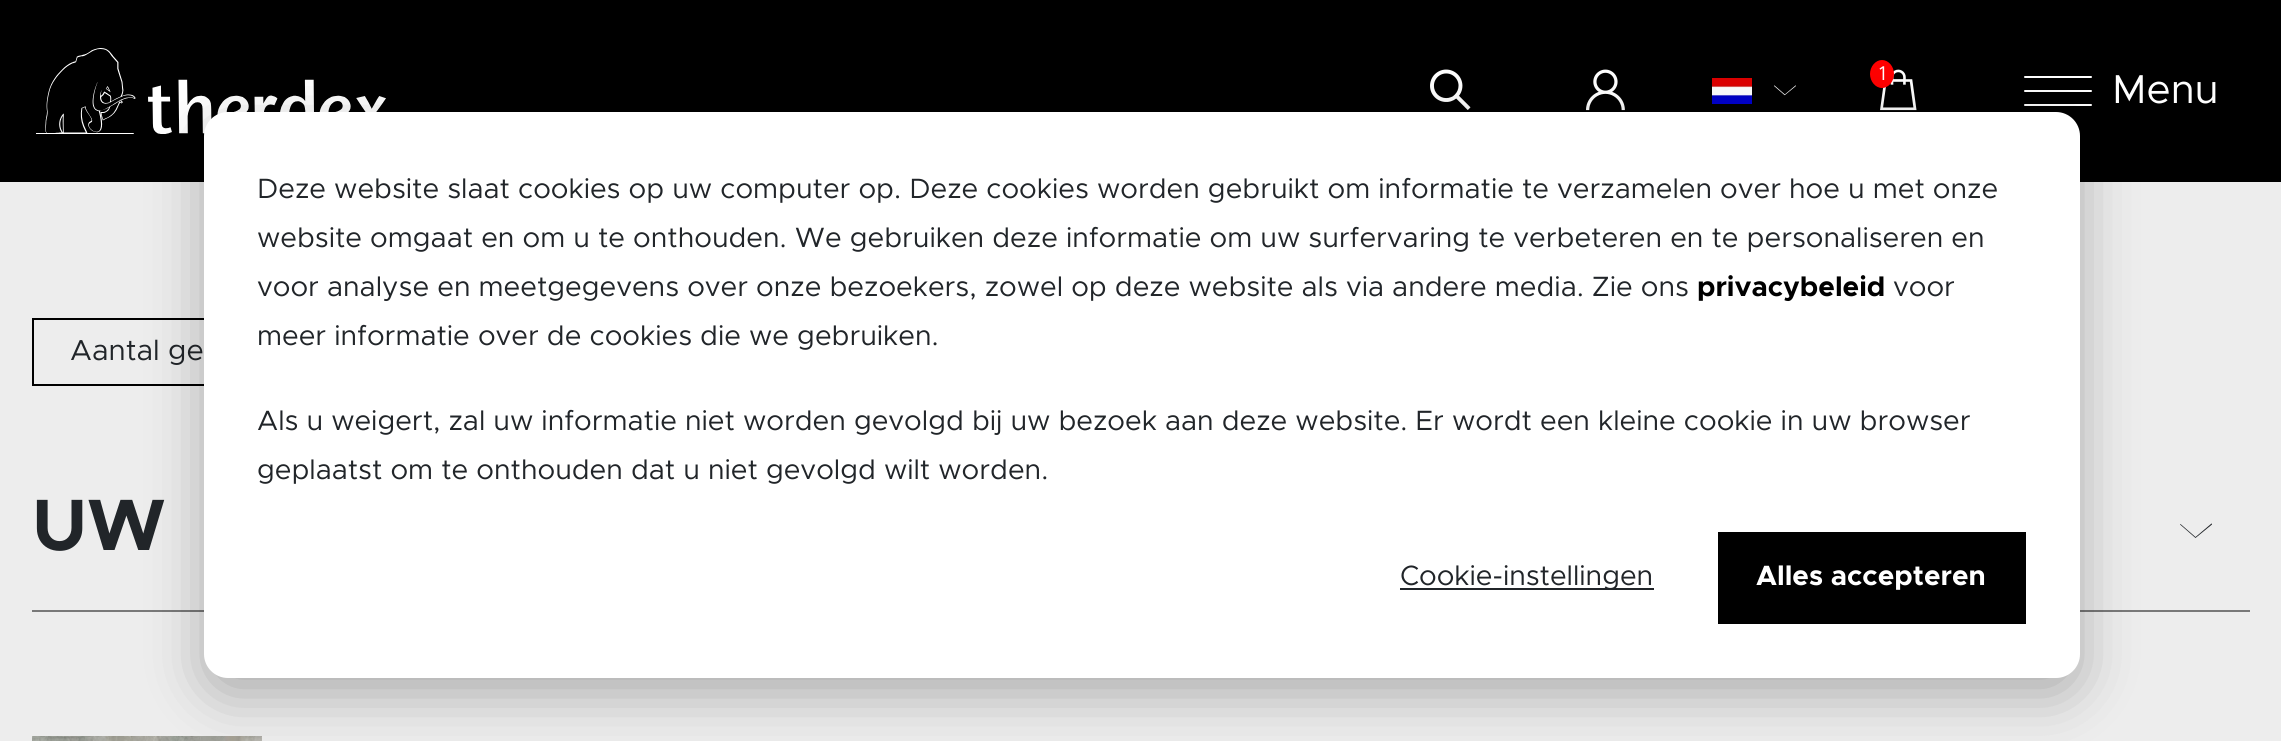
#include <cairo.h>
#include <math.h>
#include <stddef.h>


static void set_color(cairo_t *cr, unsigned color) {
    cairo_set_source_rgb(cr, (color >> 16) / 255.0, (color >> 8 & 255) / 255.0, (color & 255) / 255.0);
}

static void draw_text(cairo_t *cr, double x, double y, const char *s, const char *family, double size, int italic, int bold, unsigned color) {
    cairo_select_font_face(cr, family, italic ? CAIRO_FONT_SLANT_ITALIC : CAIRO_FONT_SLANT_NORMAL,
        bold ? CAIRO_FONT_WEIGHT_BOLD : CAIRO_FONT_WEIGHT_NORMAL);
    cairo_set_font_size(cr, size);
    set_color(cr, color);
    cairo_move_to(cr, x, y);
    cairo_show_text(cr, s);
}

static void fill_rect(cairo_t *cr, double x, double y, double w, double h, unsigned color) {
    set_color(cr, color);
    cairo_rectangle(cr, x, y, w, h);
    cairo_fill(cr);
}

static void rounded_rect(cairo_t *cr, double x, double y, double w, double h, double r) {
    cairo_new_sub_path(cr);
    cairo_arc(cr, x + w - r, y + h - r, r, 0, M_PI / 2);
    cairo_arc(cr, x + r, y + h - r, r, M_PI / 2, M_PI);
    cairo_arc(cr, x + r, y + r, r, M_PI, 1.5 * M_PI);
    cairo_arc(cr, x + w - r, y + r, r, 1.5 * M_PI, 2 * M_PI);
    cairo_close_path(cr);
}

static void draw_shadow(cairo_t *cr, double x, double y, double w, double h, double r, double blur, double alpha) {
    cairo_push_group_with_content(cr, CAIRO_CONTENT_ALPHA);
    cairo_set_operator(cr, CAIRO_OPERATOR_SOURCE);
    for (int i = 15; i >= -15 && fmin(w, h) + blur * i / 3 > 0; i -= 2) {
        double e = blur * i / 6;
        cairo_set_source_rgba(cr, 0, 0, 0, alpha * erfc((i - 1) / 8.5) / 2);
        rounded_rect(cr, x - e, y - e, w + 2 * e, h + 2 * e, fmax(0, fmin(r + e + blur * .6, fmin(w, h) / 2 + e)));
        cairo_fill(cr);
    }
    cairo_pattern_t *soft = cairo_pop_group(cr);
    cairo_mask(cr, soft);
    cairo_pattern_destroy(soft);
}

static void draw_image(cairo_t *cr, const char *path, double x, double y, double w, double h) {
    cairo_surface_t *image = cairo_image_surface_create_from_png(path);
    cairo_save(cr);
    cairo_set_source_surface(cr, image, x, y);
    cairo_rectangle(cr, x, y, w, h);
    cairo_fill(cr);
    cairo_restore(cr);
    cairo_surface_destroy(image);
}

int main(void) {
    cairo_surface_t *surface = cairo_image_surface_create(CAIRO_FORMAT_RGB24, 2281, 741);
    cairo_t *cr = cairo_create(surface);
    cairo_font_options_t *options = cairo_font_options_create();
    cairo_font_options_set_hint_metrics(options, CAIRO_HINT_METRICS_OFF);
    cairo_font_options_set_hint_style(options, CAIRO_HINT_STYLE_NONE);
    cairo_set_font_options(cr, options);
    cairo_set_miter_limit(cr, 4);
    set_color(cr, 0xEDEDED);
    cairo_paint(cr);
    fill_rect(cr, 0, 0, 2281, 182, 0x000000);
    draw_image(cr, "assets/img1.png", 36, 48, 352, 86);
    draw_image(cr, "assets/img2.png", 1430, 69, 41, 41);
    draw_image(cr, "assets/img3.png", 1586, 69, 39, 42);
    draw_image(cr, "assets/img4.png", 1712, 78, 40, 26);
    draw_image(cr, "assets/img5.png", 1774, 85, 22, 11);
    draw_image(cr, "assets/img6.png", 1880, 69, 37, 42);
    set_color(cr, 0xFF0000);
    cairo_new_path(cr);
    cairo_move_to(cr, 1882, 60);
    cairo_curve_to(cr, 1888.5, 60, 1894, 66.5, 1894, 74);
    cairo_curve_to(cr, 1894, 81.5, 1888.5, 88, 1882, 88);
    cairo_curve_to(cr, 1875.5, 88, 1870, 81.5, 1870, 74);
    cairo_curve_to(cr, 1870, 66.5, 1875.5, 60, 1882, 60);
    cairo_close_path(cr);
    cairo_fill(cr);
    draw_text(cr, 1879, 80, "1", "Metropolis", 20, 0, 0, 0xFFFFFF);
    rounded_rect(cr, 2024, 104, 68, 2, 1);
    cairo_fill(cr);
    rounded_rect(cr, 2024, 76, 68, 2, 1);
    cairo_fill(cr);
    rounded_rect(cr, 2024, 90, 68, 2, 1);
    cairo_fill(cr);
    draw_text(cr, 2112, 103, "Menu", "Metropolis", 40.5, 0, 0, 0xFFFFFF);
    draw_text(cr, 70, 360, "Aantal ge", "Metropolis", 29, 0, 0, 0x212529);
    fill_rect(cr, 32, 318, 172, 2, 0x000000);
    fill_rect(cr, 32, 384, 172, 2, 0x000000);
    fill_rect(cr, 32, 318, 2, 68, 0x000000);
    draw_text(cr, 32, 550, "UW", "Metropolis", 73, 0, 1, 0x212529);
    cairo_new_path(cr);
    cairo_move_to(cr, 2195.5, 538);
    cairo_line_to(cr, 2180, 524.5);
    cairo_line_to(cr, 2180.5, 524);
    cairo_line_to(cr, 2195.5, 537);
    cairo_line_to(cr, 2211.5, 523.5);
    cairo_curve_to(cr, 2212, 523.5, 2212, 524, 2212, 524.5);
    cairo_close_path(cr);
    cairo_fill(cr);
    fill_rect(cr, 32, 610, 2218, 2, 0x797979);
    draw_image(cr, "assets/img7.png", 32, 736, 230, 5);
    set_color(cr, 0x000000);
    draw_shadow(cr, 204, 128, 1876, 566, 24, 28, 0.28);
    set_color(cr, 0xFFFFFF);
    rounded_rect(cr, 204, 112, 1876, 566, 24);
    cairo_fill(cr);
    draw_text(cr, 257, 198, "Deze website slaat cookies op uw computer op. Deze cookies worden gebruikt om informatie te verzamelen over hoe u met onze", "Metropolis", 28, 0, 0, 0x212529);
    draw_text(cr, 257, 247, "website omgaat en om u te onthouden. We gebruiken deze informatie om uw surfervaring te verbeteren en te personaliseren en", "Metropolis", 28, 0, 0, 0x212529);
    draw_text(cr, 257, 296, "voor analyse en meetgegevens over onze bezoekers, zowel op deze website als via andere media. Zie ons", "Metropolis", 28, 0, 0, 0x212529);
    draw_text(cr, 1697, 296, "privacybeleid", "Metropolis", 28, 0, 1, 0x000000);
    draw_text(cr, 1893, 296, "voor", "Metropolis", 28, 0, 0, 0x212529);
    draw_text(cr, 257, 345, "meer informatie over de cookies die we gebruiken.", "Metropolis", 28, 0, 0, 0x212529);
    draw_text(cr, 257, 430, "Als u weigert, zal uw informatie niet worden gevolgd bij uw bezoek aan deze website. Er wordt een kleine cookie in uw browser", "Metropolis", 28, 0, 0, 0x212529);
    draw_text(cr, 257, 479, "geplaatst om te onthouden dat u niet gevolgd wilt worden.", "Metropolis", 28, 0, 0, 0x212529);
    fill_rect(cr, 1400, 588, 254, 2, 0x212529);
    draw_text(cr, 1400, 585, "Cookie-instellingen", "Metropolis", 28, 0, 0, 0x212529);
    fill_rect(cr, 1718, 532, 308, 92, 0x000000);
    draw_text(cr, 1756, 585, "Alles accepteren", "Metropolis", 28, 0, 1, 0xFFFFFF);
    cairo_surface_write_to_png(surface, "output.png");
    cairo_font_options_destroy(options);
    cairo_destroy(cr);
    cairo_surface_destroy(surface);
    return 0;
}
